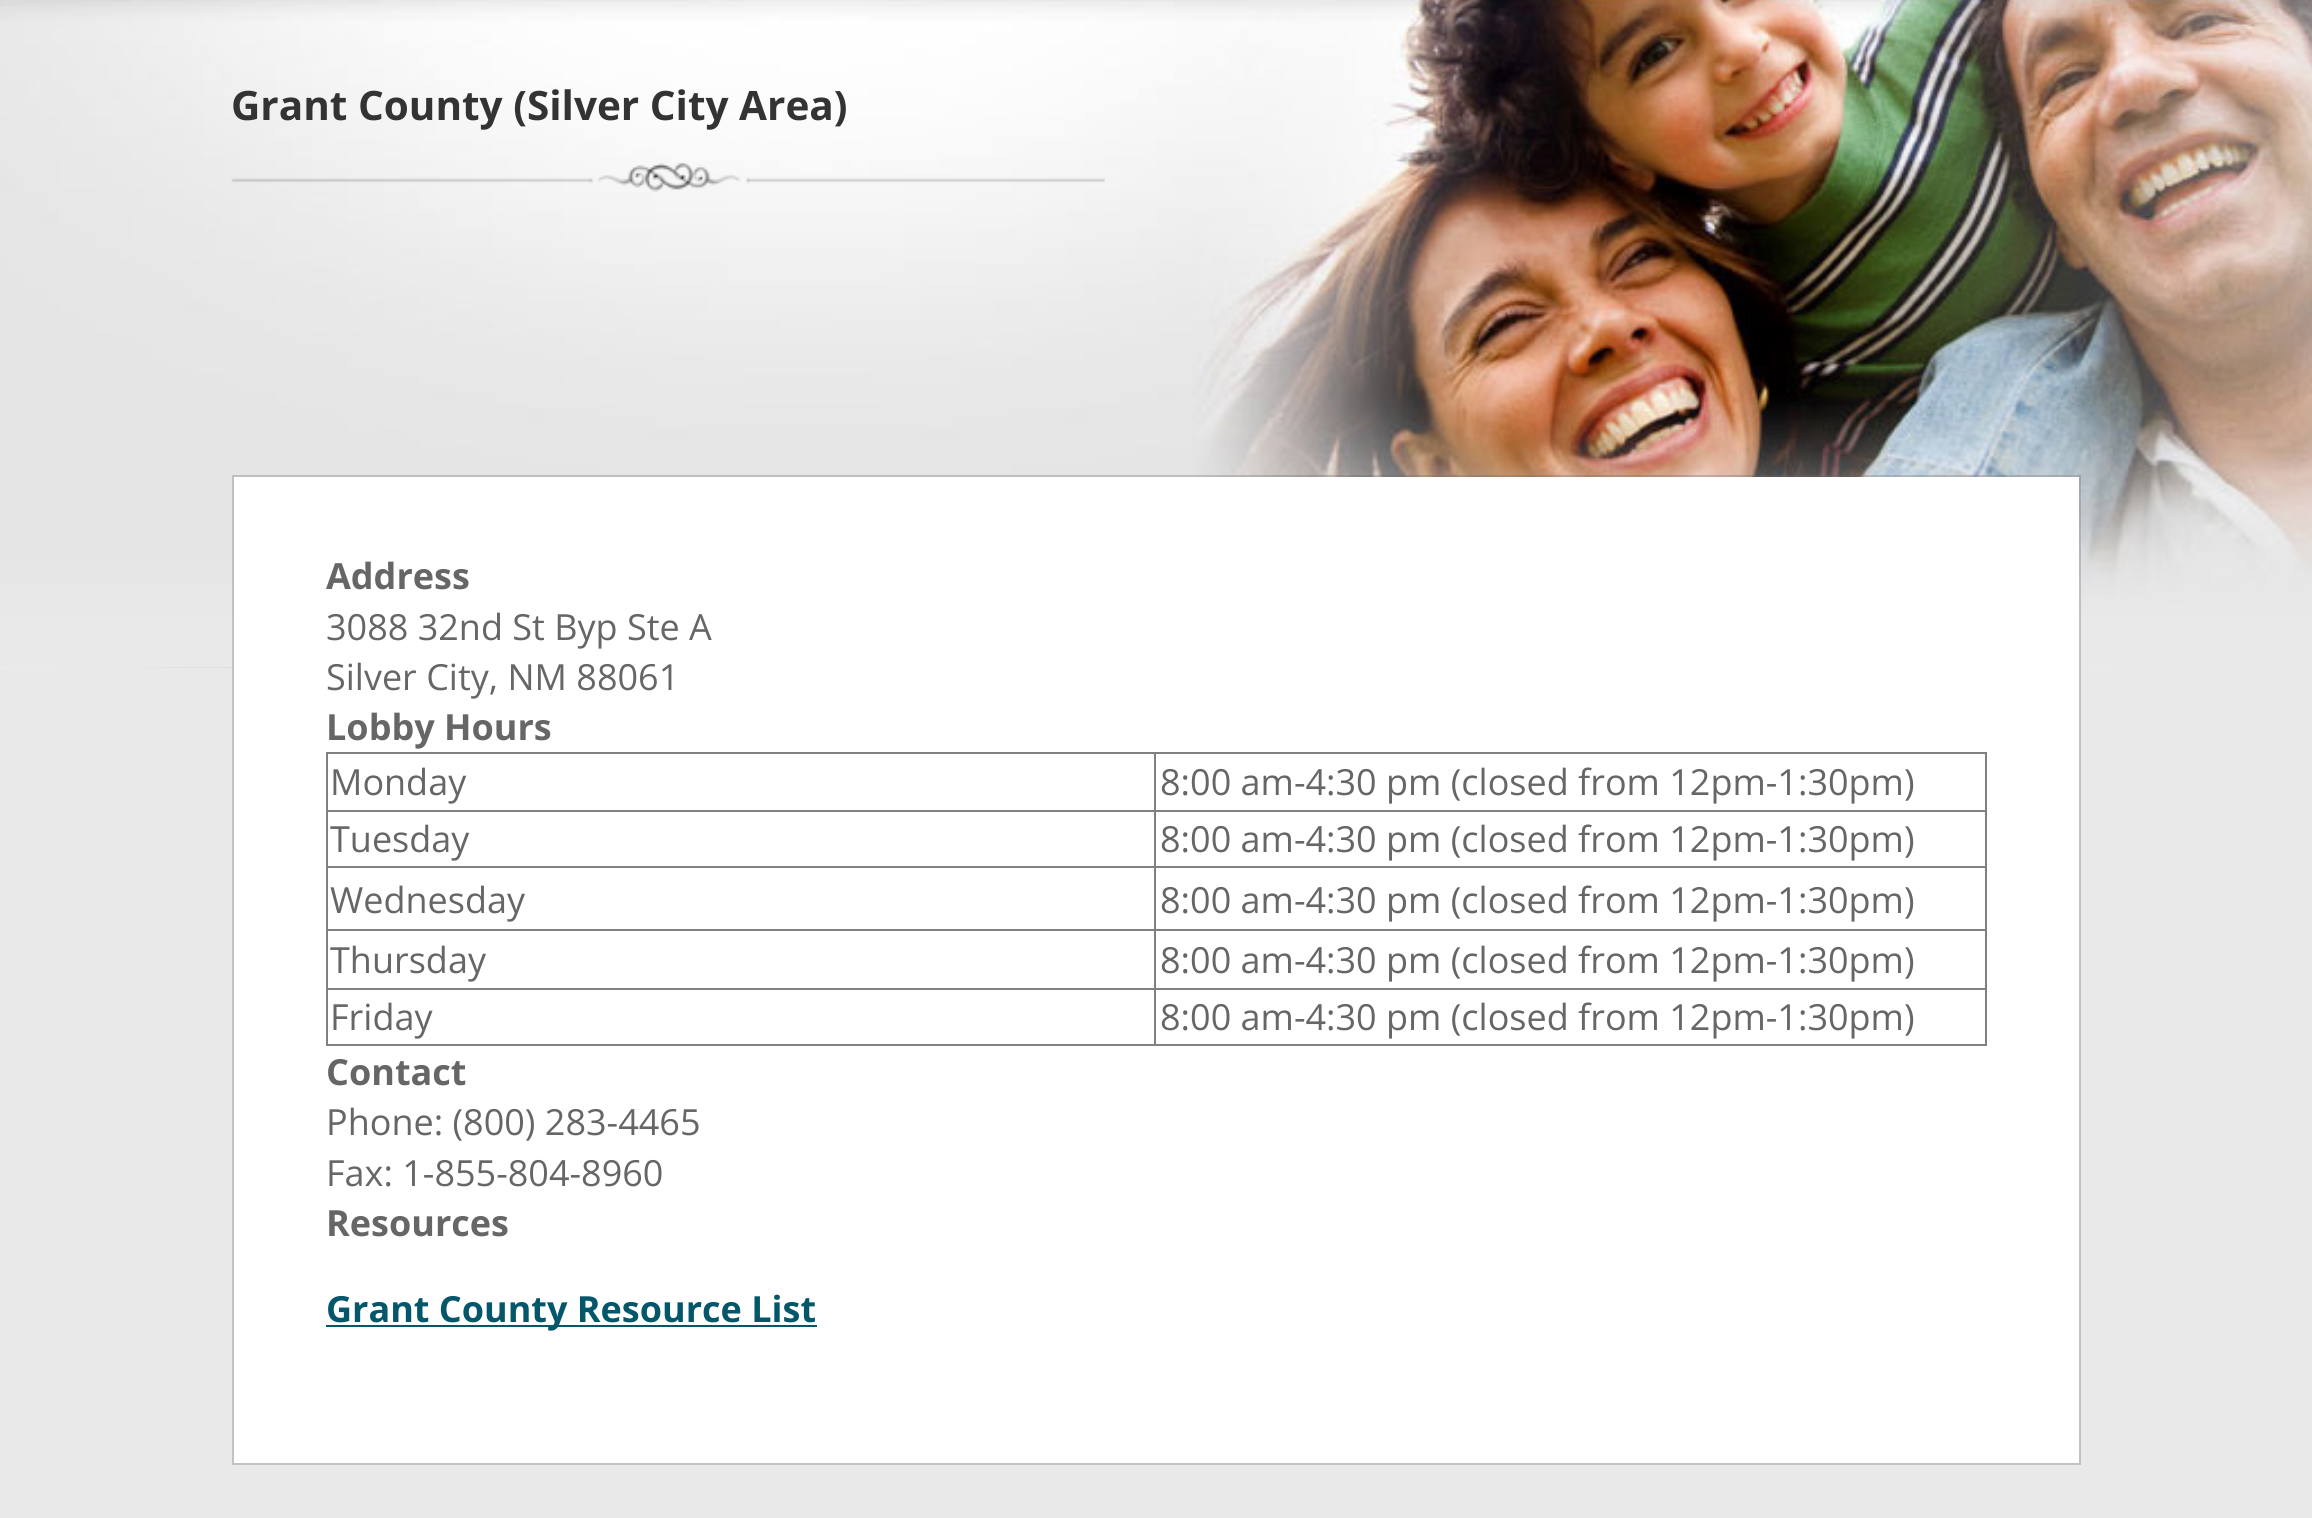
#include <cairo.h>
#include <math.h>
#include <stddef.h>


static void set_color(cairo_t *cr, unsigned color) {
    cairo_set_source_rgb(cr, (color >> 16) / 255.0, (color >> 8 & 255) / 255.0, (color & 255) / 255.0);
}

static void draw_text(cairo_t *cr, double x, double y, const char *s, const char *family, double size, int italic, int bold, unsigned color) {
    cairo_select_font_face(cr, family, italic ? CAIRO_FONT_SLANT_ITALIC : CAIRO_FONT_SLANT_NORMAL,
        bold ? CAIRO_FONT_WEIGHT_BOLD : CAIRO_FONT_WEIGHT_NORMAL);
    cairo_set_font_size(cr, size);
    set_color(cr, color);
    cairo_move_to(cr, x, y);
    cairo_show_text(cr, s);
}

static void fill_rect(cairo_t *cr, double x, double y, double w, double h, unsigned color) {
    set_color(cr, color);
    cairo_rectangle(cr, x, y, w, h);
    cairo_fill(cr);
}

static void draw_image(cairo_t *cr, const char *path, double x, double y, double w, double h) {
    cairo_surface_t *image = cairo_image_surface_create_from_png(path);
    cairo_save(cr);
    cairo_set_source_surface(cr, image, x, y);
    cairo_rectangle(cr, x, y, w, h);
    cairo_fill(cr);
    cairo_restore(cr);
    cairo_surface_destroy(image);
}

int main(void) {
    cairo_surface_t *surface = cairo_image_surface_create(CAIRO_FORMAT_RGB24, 2312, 1518);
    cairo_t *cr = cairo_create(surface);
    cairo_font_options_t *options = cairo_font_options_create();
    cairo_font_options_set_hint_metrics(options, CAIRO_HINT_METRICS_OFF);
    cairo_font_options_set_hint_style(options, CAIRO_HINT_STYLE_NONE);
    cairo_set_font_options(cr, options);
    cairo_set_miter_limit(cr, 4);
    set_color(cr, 0xFFFFFF);
    cairo_paint(cr);
    draw_image(cr, "assets/img1.png", 0, 667, 2312, 1);
    draw_image(cr, "assets/img2.png", 0, 0, 2312, 668);
    draw_text(cr, 231, 120, "Grant County (Silver City Area)", "Open Sans", 40.5, 0, 1, 0x333333);
    draw_image(cr, "assets/img3.png", 231, 162, 874, 30);
    fill_rect(cr, 0, 668, 2312, 850, 0xE9E9E9);
    cairo_rectangle(cr, 233, 476, 1847, 988);
    cairo_set_source_rgba(cr, 0.4, 0.4, 0.4, 0.3);
    cairo_stroke(cr);
    fill_rect(cr, 234, 477, 1845, 986, 0xFFFFFF);
    draw_text(cr, 326, 589, "Address", "Open Sans", 36, 0, 1, 0x666666);
    draw_text(cr, 326, 640, "3088 32nd St Byp Ste A", "Open Sans", 36, 0, 0, 0x666666);
    draw_text(cr, 326, 690, "Silver City, NM 88061", "Open Sans", 36, 0, 0, 0x666666);
    draw_text(cr, 326, 740, "Lobby Hours", "Open Sans", 36, 0, 1, 0x666666);
    fill_rect(cr, 326, 752, 1661, 2, 0x808080);
    fill_rect(cr, 1985, 752, 2, 294, 0x808080);
    fill_rect(cr, 326, 1044, 1661, 2, 0x808080);
    fill_rect(cr, 326, 752, 2, 294, 0x808080);
    draw_text(cr, 330, 795, "Monday", "Open Sans", 36, 0, 0, 0x666666);
    fill_rect(cr, 1154, 810, 833, 2, 0x808080);
    fill_rect(cr, 1154, 866, 833, 2, 0x808080);
    fill_rect(cr, 1154, 929, 833, 2, 0x808080);
    fill_rect(cr, 1154, 988, 833, 2, 0x808080);
    fill_rect(cr, 1154, 988, 2, 58, 0x808080);
    fill_rect(cr, 326, 988, 831, 2, 0x808080);
    fill_rect(cr, 1154, 929, 2, 61, 0x808080);
    fill_rect(cr, 326, 929, 831, 2, 0x808080);
    fill_rect(cr, 1154, 866, 2, 66, 0x808080);
    fill_rect(cr, 326, 866, 831, 2, 0x808080);
    fill_rect(cr, 1154, 810, 2, 59, 0x808080);
    fill_rect(cr, 326, 810, 831, 2, 0x808080);
    fill_rect(cr, 1154, 752, 2, 60, 0x808080);
    draw_text(cr, 1160, 795, "8:00 am-4:30 pm (closed from 12pm-1:30pm)", "Open Sans", 36, 0, 0, 0x666666);
    draw_text(cr, 330, 852, "Tuesday", "Open Sans", 36, 0, 0, 0x666666);
    draw_text(cr, 1160, 852, "8:00 am-4:30 pm (closed from 12pm-1:30pm)", "Open Sans", 36, 0, 0, 0x666666);
    draw_text(cr, 330, 913, "Wednesday", "Open Sans", 36, 0, 0, 0x666666);
    draw_text(cr, 1160, 913, "8:00 am-4:30 pm (closed from 12pm-1:30pm)", "Open Sans", 36, 0, 0, 0x666666);
    draw_text(cr, 330, 973, "Thursday", "Open Sans", 36, 0, 0, 0x666666);
    draw_text(cr, 1160, 973, "8:00 am-4:30 pm (closed from 12pm-1:30pm)", "Open Sans", 36, 0, 0, 0x666666);
    draw_text(cr, 330, 1030, "Friday", "Open Sans", 36, 0, 0, 0x666666);
    draw_text(cr, 1160, 1030, "8:00 am-4:30 pm (closed from 12pm-1:30pm)", "Open Sans", 36, 0, 0, 0x666666);
    draw_text(cr, 326, 1085, "Contact", "Open Sans", 36, 0, 1, 0x666666);
    draw_text(cr, 326, 1135, "Phone: (800) 283-4465", "Open Sans", 36, 0, 0, 0x666666);
    draw_text(cr, 326, 1186, "Fax: 1-855-804-8960", "Open Sans", 36, 0, 0, 0x666666);
    draw_text(cr, 326, 1236, "Resources", "Open Sans", 36, 0, 1, 0x666666);
    fill_rect(cr, 326, 1325, 491, 2, 0x04566B);
    draw_text(cr, 326, 1322, "Grant County Resource List", "Open Sans", 36, 0, 1, 0x04566B);
    cairo_surface_write_to_png(surface, "output.png");
    cairo_font_options_destroy(options);
    cairo_destroy(cr);
    cairo_surface_destroy(surface);
    return 0;
}
